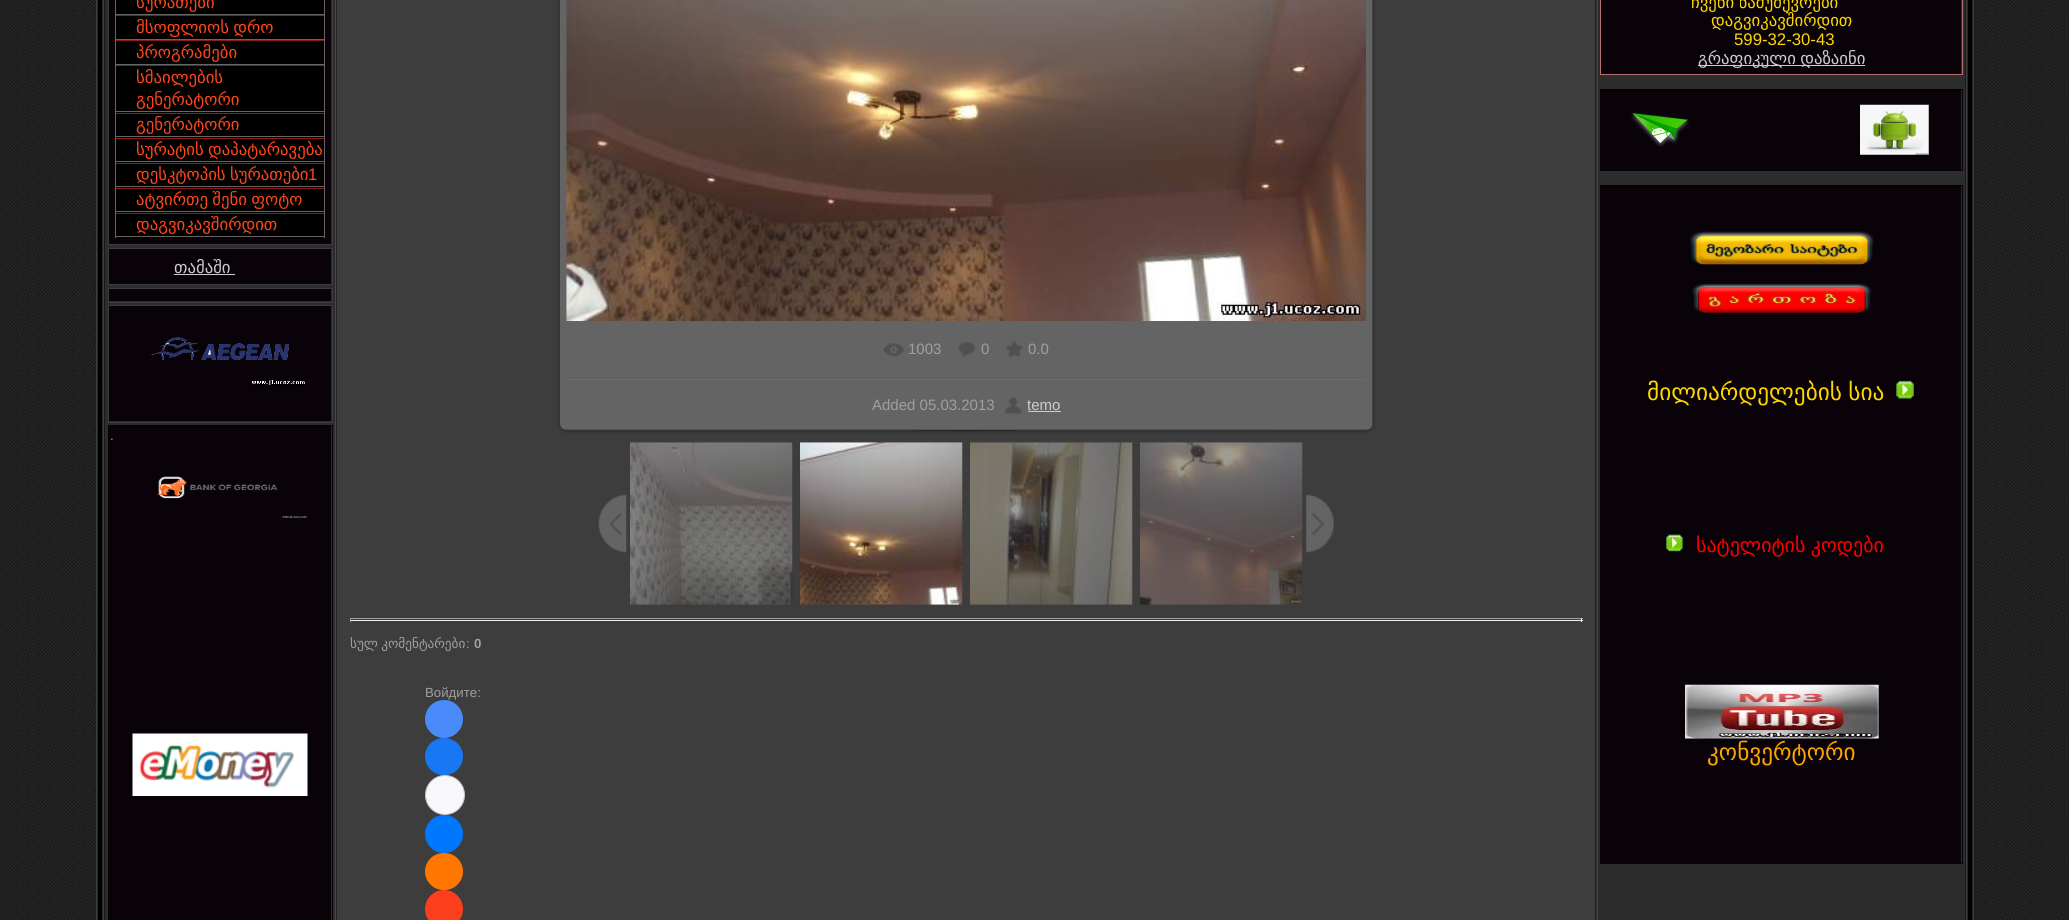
#include <cairo.h>
#include <math.h>
#include <stddef.h>


static void set_color(cairo_t *cr, unsigned color) {
    cairo_set_source_rgb(cr, (color >> 16) / 255.0, (color >> 8 & 255) / 255.0, (color & 255) / 255.0);
}

static void draw_text(cairo_t *cr, double x, double y, const char *s, const char *family, double size, int italic, int bold, unsigned color) {
    cairo_select_font_face(cr, family, italic ? CAIRO_FONT_SLANT_ITALIC : CAIRO_FONT_SLANT_NORMAL,
        bold ? CAIRO_FONT_WEIGHT_BOLD : CAIRO_FONT_WEIGHT_NORMAL);
    cairo_set_font_size(cr, size);
    set_color(cr, color);
    cairo_move_to(cr, x, y);
    cairo_show_text(cr, s);
}

static void draw_spaced(cairo_t *cr, double x, double y, const char *s, double letter, double word) {
    cairo_move_to(cr, x, y);
    while (*s) {
        char ch[5] = {0};
        int n = 0;
        do ch[n++] = *s++; while ((*s & 0xC0) == 0x80);
        cairo_show_text(cr, ch);
        cairo_rel_move_to(cr, letter + word * (*ch == ' '), 0);
    }
}

static void fill_rect(cairo_t *cr, double x, double y, double w, double h, unsigned color) {
    set_color(cr, color);
    cairo_rectangle(cr, x, y, w, h);
    cairo_fill(cr);
}

static void rounded_rect(cairo_t *cr, double x, double y, double w, double h, double r) {
    cairo_new_sub_path(cr);
    cairo_arc(cr, x + w - r, y + h - r, r, 0, M_PI / 2);
    cairo_arc(cr, x + r, y + h - r, r, M_PI / 2, M_PI);
    cairo_arc(cr, x + r, y + r, r, M_PI, 1.5 * M_PI);
    cairo_arc(cr, x + w - r, y + r, r, 1.5 * M_PI, 2 * M_PI);
    cairo_close_path(cr);
}

static void draw_shadow(cairo_t *cr, double x, double y, double w, double h, double r, double blur, double alpha) {
    cairo_push_group_with_content(cr, CAIRO_CONTENT_ALPHA);
    cairo_set_operator(cr, CAIRO_OPERATOR_SOURCE);
    for (int i = 15; i >= -15 && fmin(w, h) + blur * i / 3 > 0; i -= 2) {
        double e = blur * i / 6;
        cairo_set_source_rgba(cr, 0, 0, 0, alpha * erfc((i - 1) / 8.5) / 2);
        rounded_rect(cr, x - e, y - e, w + 2 * e, h + 2 * e, fmax(0, fmin(r + e + blur * .6, fmin(w, h) / 2 + e)));
        cairo_fill(cr);
    }
    cairo_pattern_t *soft = cairo_pop_group(cr);
    cairo_mask(cr, soft);
    cairo_pattern_destroy(soft);
}

static void draw_image(cairo_t *cr, const char *path, double x, double y, double w, double h) {
    cairo_surface_t *image = cairo_image_surface_create_from_png(path);
    cairo_save(cr);
    cairo_set_source_surface(cr, image, x, y);
    cairo_rectangle(cr, x, y, w, h);
    cairo_fill(cr);
    cairo_restore(cr);
    cairo_surface_destroy(image);
}

int main(void) {
    cairo_surface_t *surface = cairo_image_surface_create(CAIRO_FORMAT_RGB24, 2069, 920);
    cairo_t *cr = cairo_create(surface);
    cairo_font_options_t *options = cairo_font_options_create();
    cairo_font_options_set_hint_metrics(options, CAIRO_HINT_METRICS_OFF);
    cairo_font_options_set_hint_style(options, CAIRO_HINT_STYLE_NONE);
    cairo_set_font_options(cr, options);
    cairo_set_miter_limit(cr, 4);
    set_color(cr, 0xFFFFFF);
    cairo_paint(cr);
    draw_image(cr, "assets/img1.png", 0, 0, 2069, 920);
    draw_image(cr, "assets/img2.png", 96, 0, 8, 920);
    draw_image(cr, "assets/img3.png", 96, 254, 8, 2);
    set_color(cr, 0x2C2C2C);
    cairo_rectangle(cr, 104.5, -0.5, 1861, 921);
    cairo_fill_preserve(cr);
    set_color(cr, 0x1A1A1A);
    cairo_set_line_width(cr, 1);
    cairo_stroke(cr);
    cairo_rectangle(cr, 108.5, -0.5, 224, 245);
    set_color(cr, 0x3C3C3C);
    cairo_stroke(cr);
    fill_rect(cr, 109, 0, 222, 244, 0x090309);
    fill_rect(cr, 116, 0, 208, 14, 0x010001);
    fill_rect(cr, 324, 0, 1, 15, 0x666666);
    fill_rect(cr, 115, 14, 210, 1, 0x666666);
    fill_rect(cr, 115, 0, 1, 15, 0x666666);
    draw_text(cr, 136, 8, "სურათები", "DejaVu Sans", 16.75, 0, 0, 0xFF4719);
    fill_rect(cr, 116, 16, 208, 23, 0x010001);
    fill_rect(cr, 115, 15, 210, 1, 0x8D1919);
    fill_rect(cr, 324, 15, 1, 25, 0x666666);
    fill_rect(cr, 115, 39, 210, 1, 0x666666);
    fill_rect(cr, 115, 15, 1, 25, 0x666666);
    set_color(cr, 0xFF4719);
    draw_spaced(cr, 136, 33, "მსოფლიოს დრო", 0, -1);
    fill_rect(cr, 116, 41, 208, 23, 0x010001);
    fill_rect(cr, 115, 40, 210, 1, 0x8D1919);
    fill_rect(cr, 324, 40, 1, 25, 0x666666);
    fill_rect(cr, 115, 64, 210, 1, 0x666666);
    fill_rect(cr, 115, 40, 1, 25, 0x666666);
    draw_text(cr, 136, 58, "პროგრამები", "DejaVu Sans", 16.75, 0, 0, 0xFF4719);
    fill_rect(cr, 116, 66, 208, 47, 0x010001);
    fill_rect(cr, 115, 65, 210, 1, 0x8D1919);
    fill_rect(cr, 324, 65, 1, 48, 0x666666);
    fill_rect(cr, 115, 111, 210, 1, 0x666666);
    fill_rect(cr, 115, 65, 1, 48, 0x666666);
    draw_text(cr, 136, 83, "სმაილების", "DejaVu Sans", 16.75, 0, 0, 0xFF4719);
    draw_text(cr, 136, 105, "გენერატორი", "DejaVu Sans", 16.75, 0, 0, 0xFF4719);
    fill_rect(cr, 116, 114, 208, 24, 0x010001);
    fill_rect(cr, 115, 113, 210, 1, 0x8D1919);
    fill_rect(cr, 324, 113, 1, 25, 0x666666);
    fill_rect(cr, 115, 136, 210, 1, 0x666666);
    fill_rect(cr, 115, 113, 1, 25, 0x666666);
    draw_text(cr, 136, 130, "გენერატორი", "DejaVu Sans", 16.75, 0, 0, 0xFF4719);
    fill_rect(cr, 116, 139, 208, 24, 0x010001);
    fill_rect(cr, 115, 138, 210, 1, 0x8D1919);
    fill_rect(cr, 324, 138, 1, 25, 0x666666);
    fill_rect(cr, 115, 161, 210, 1, 0x666666);
    fill_rect(cr, 115, 138, 1, 25, 0x666666);
    set_color(cr, 0xFF4719);
    draw_spaced(cr, 136, 155, "სურატის დაპატარავება", 0, -1);
    fill_rect(cr, 116, 164, 208, 24, 0x010001);
    fill_rect(cr, 115, 163, 210, 1, 0x8D1919);
    fill_rect(cr, 324, 163, 1, 25, 0x666666);
    fill_rect(cr, 115, 186, 210, 1, 0x666666);
    fill_rect(cr, 115, 163, 1, 25, 0x666666);
    set_color(cr, 0xFF4719);
    draw_spaced(cr, 136, 180, "დესკტოპის სურათები", 0, -1);
    draw_text(cr, 308, 180, "1", "Liberation Sans", 16.75, 0, 0, 0xFF4719);
    fill_rect(cr, 116, 189, 208, 24, 0x010001);
    fill_rect(cr, 115, 188, 210, 1, 0x8D1919);
    fill_rect(cr, 324, 188, 1, 25, 0x666666);
    fill_rect(cr, 115, 211, 210, 1, 0x666666);
    fill_rect(cr, 115, 188, 1, 25, 0x666666);
    cairo_select_font_face(cr, "DejaVu Sans", CAIRO_FONT_SLANT_NORMAL, CAIRO_FONT_WEIGHT_NORMAL);
    set_color(cr, 0xFF4719);
    draw_spaced(cr, 136, 205, "ატვირთე შენი ფოტო", 0, -1);
    fill_rect(cr, 116, 214, 208, 24, 0x010001);
    fill_rect(cr, 115, 213, 210, 1, 0x8D1919);
    fill_rect(cr, 324, 213, 1, 25, 0x666666);
    fill_rect(cr, 115, 236, 210, 1, 0x666666);
    fill_rect(cr, 115, 213, 1, 25, 0x666666);
    draw_text(cr, 136, 230, "დაგვიკავშირდით", "DejaVu Sans", 16.75, 0, 0, 0xFF4719);
    cairo_rectangle(cr, 108.5, 248.5, 224, 36);
    set_color(cr, 0x3C3C3C);
    cairo_stroke(cr);
    fill_rect(cr, 109, 249, 222, 35, 0x090309);
    draw_text(cr, 174, 273, "თამაში", "DejaVu Sans", 16.75, 0, 0, 0xCCCCCC);
    fill_rect(cr, 174, 274, 61, 1, 0xCCCCCC);
    cairo_rectangle(cr, 108.5, 288.5, 224, 14);
    set_color(cr, 0x3C3C3C);
    cairo_stroke(cr);
    fill_rect(cr, 109, 289, 222, 12, 0x090309);
    cairo_rectangle(cr, 108.5, 305.5, 224, 117);
    set_color(cr, 0x3C3C3C);
    cairo_stroke(cr);
    fill_rect(cr, 109, 306, 222, 115, 0x090309);
    draw_image(cr, "assets/img4.png", 151, 337, 154, 49);
    cairo_rectangle(cr, 108.5, 425.5, 224, 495);
    cairo_stroke(cr);
    fill_rect(cr, 109, 426, 222, 494, 0x090309);
    draw_text(cr, 110, 440, ".", "Liberation Sans", 13.25, 0, 0, 0x9F9F9F);
    draw_image(cr, "assets/img5.png", 157, 476, 150, 43);
    draw_image(cr, "assets/img6.png", 132, 733, 176, 63);
    cairo_rectangle(cr, 335.5, -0.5, 1262, 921);
    set_color(cr, 0x494949);
    cairo_stroke(cr);
    set_color(cr, 0x3D3D3D);
    cairo_rectangle(cr, 336.5, -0.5, 1259, 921);
    cairo_fill_preserve(cr);
    set_color(cr, 0x262626);
    cairo_stroke(cr);
    cairo_save(cr);
    cairo_set_fill_rule(cr, CAIRO_FILL_RULE_EVEN_ODD);
    cairo_new_path(cr);
    cairo_move_to(cr, 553, 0);
    cairo_line_to(cr, 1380, 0);
    cairo_line_to(cr, 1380, 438);
    cairo_line_to(cr, 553, 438);
    cairo_close_path(cr);
    cairo_move_to(cr, 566, -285);
    cairo_line_to(cr, 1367, -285);
    cairo_curve_to(cr, 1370.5, -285, 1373, -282.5, 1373, -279);
    cairo_line_to(cr, 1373, 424);
    cairo_curve_to(cr, 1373, 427.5, 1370.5, 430, 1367, 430);
    cairo_line_to(cr, 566, 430);
    cairo_curve_to(cr, 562.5, 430, 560, 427.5, 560, 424);
    cairo_line_to(cr, 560, -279);
    cairo_curve_to(cr, 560, -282.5, 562.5, -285, 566, -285);
    cairo_close_path(cr);
    cairo_clip(cr);
    set_color(cr, 0x000000);
    draw_shadow(cr, 560, -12, 813, 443, 6, 2, 0.37);
    cairo_restore(cr);
    draw_image(cr, "assets/img7.png", 560, 0, 813, 430);
    draw_image(cr, "assets/img8.png", 566, 0, 800, 321);
    draw_image(cr, "assets/img9.png", 883, 343, 21, 13);
    draw_text(cr, 908, 354, "1003", "Liberation Sans", 15, 0, 0, 0x9F9F9F);
    draw_image(cr, "assets/img10.png", 958, 342, 17, 15);
    draw_text(cr, 981, 354, "0", "Liberation Sans", 15, 0, 0, 0x9F9F9F);
    draw_image(cr, "assets/img11.png", 1006, 341, 17, 16);
    draw_text(cr, 1028, 354, "0.0", "Liberation Sans", 15, 0, 0, 0x9F9F9F);
    draw_image(cr, "assets/img12.png", 566, 377, 800, 3);
    draw_text(cr, 872, 410, "Added 05.03.2013", "Liberation Sans", 15, 0, 0, 0x9F9F9F);
    draw_image(cr, "assets/img13.png", 1005, 397, 17, 17);
    draw_text(cr, 1027, 410, "temo", "Liberation Sans", 15, 0, 0, 0xCCCCCC);
    fill_rect(cr, 1028, 411, 33, 1, 0xCCCCCC);
    draw_image(cr, "assets/img14.png", 916, 430, 100, 2);
    draw_image(cr, "assets/img15.png", 598, 494, 29, 59);
    draw_image(cr, "assets/img16.png", 630, 442, 163, 163);
    draw_image(cr, "assets/img17.png", 800, 442, 163, 163);
    draw_image(cr, "assets/img18.png", 970, 442, 163, 163);
    draw_image(cr, "assets/img19.png", 1140, 442, 163, 163);
    draw_image(cr, "assets/img20.png", 1306, 494, 28, 59);
    fill_rect(cr, 350, 618, 1233, 1, 0x9F9F9F);
    fill_rect(cr, 1581, 618, 1, 4, 0xEEEEEE);
    fill_rect(cr, 350, 620, 1233, 1, 0xEEEEEE);
    fill_rect(cr, 350, 618, 1, 4, 0x9F9F9F);
    cairo_select_font_face(cr, "DejaVu Sans", CAIRO_FONT_SLANT_NORMAL, CAIRO_FONT_WEIGHT_NORMAL);
    cairo_set_font_size(cr, 13.25);
    draw_spaced(cr, 350, 648, "სულ კომენტარები", 0, -1);
    draw_text(cr, 466, 648, ":", "Liberation Sans", 13.25, 0, 0, 0x9F9F9F);
    draw_text(cr, 474, 648, "0", "Liberation Sans", 13.25, 0, 1, 0x9F9F9F);
    draw_text(cr, 425, 697, "Войдите:", "Liberation Sans", 13.25, 0, 0, 0x9F9F9F);
    set_color(cr, 0x498BFA);
    cairo_new_path(cr);
    cairo_arc(cr, 444, 719, 19, 0, 2 * M_PI);
    cairo_fill(cr);
    set_color(cr, 0x1877F2);
    rounded_rect(cr, 425, 738, 38, 37, 18.5);
    cairo_fill(cr);
    set_color(cr, 0xF8F8FC);
    cairo_arc(cr, 445, 795, 19.5, 0, 2 * M_PI);
    cairo_fill_preserve(cr);
    set_color(cr, 0xC4C4C4);
    cairo_stroke(cr);
    set_color(cr, 0x0077FF);
    cairo_arc(cr, 444, 834, 19, 0, 2 * M_PI);
    cairo_fill(cr);
    set_color(cr, 0xFF7700);
    rounded_rect(cr, 425, 853, 38, 37, 18.5);
    cairo_fill(cr);
    set_color(cr, 0xFC3F1D);
    cairo_arc(cr, 444, 909, 19, 0, 2 * M_PI);
    cairo_fill(cr);
    cairo_rectangle(cr, 1600.5, -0.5, 362, 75);
    set_color(cr, 0xB46E6E);
    cairo_stroke(cr);
    fill_rect(cr, 1601, 0, 360, 74, 0x090309);
    cairo_select_font_face(cr, "DejaVu Sans", CAIRO_FONT_SLANT_NORMAL, CAIRO_FONT_WEIGHT_NORMAL);
    cairo_set_font_size(cr, 16.75);
    set_color(cr, 0xFFD700);
    draw_spaced(cr, 1691, 8, "ჩვენი ნამუშევრები", 0, -1);
    draw_text(cr, 1711, 26, "დაგვიკავშირდით", "DejaVu Sans", 16.75, 0, 0, 0xFFD700);
    draw_text(cr, 1734, 45, "599-32-30-43", "Liberation Sans", 16.75, 0, 0, 0xFFD700);
    fill_rect(cr, 1698, 65, 167, 1, 0xCCCCCC);
    cairo_select_font_face(cr, "DejaVu Sans", CAIRO_FONT_SLANT_NORMAL, CAIRO_FONT_WEIGHT_NORMAL);
    draw_spaced(cr, 1698, 64, "გრაფიკული დაზაინი", 0, -1);
    cairo_rectangle(cr, 1600.5, 89.5, 362, 81);
    set_color(cr, 0x090309);
    cairo_stroke(cr);
    fill_rect(cr, 1601, 90, 360, 80, 0x090309);
    draw_image(cr, "assets/img21.png", 1631, 112, 58, 35);
    draw_image(cr, "assets/img22.png", 1860, 104, 69, 51);
    cairo_rectangle(cr, 1600.5, 185.5, 362, 678);
    cairo_stroke(cr);
    fill_rect(cr, 1601, 186, 360, 677, 0x090309);
    draw_image(cr, "assets/img23.png", 1690, 231, 184, 35);
    draw_image(cr, "assets/img24.png", 1692, 283, 180, 31);
    cairo_set_font_size(cr, 23.25);
    set_color(cr, 0xFFD700);
    draw_spaced(cr, 1647, 400, "მილიარდელების სია", 0, -1);
    draw_image(cr, "assets/img25.png", 1896, 380, 18, 19);
    draw_image(cr, "assets/img26.png", 1666, 534, 17, 18);
    cairo_set_font_size(cr, 20);
    set_color(cr, 0xFF0000);
    draw_spaced(cr, 1696, 552, "სატელიტის კოდები", 0, -1);
    draw_image(cr, "assets/img27.png", 1685, 684, 194, 55);
    draw_text(cr, 1707, 760, "კონვერტორი", "DejaVu Sans", 23.25, 0, 0, 0xFFA500);
    draw_image(cr, "assets/img28.png", 1966, 0, 8, 920);
    draw_image(cr, "assets/img29.png", 1966, 254, 8, 2);
    cairo_surface_write_to_png(surface, "output.png");
    cairo_font_options_destroy(options);
    cairo_destroy(cr);
    cairo_surface_destroy(surface);
    return 0;
}
